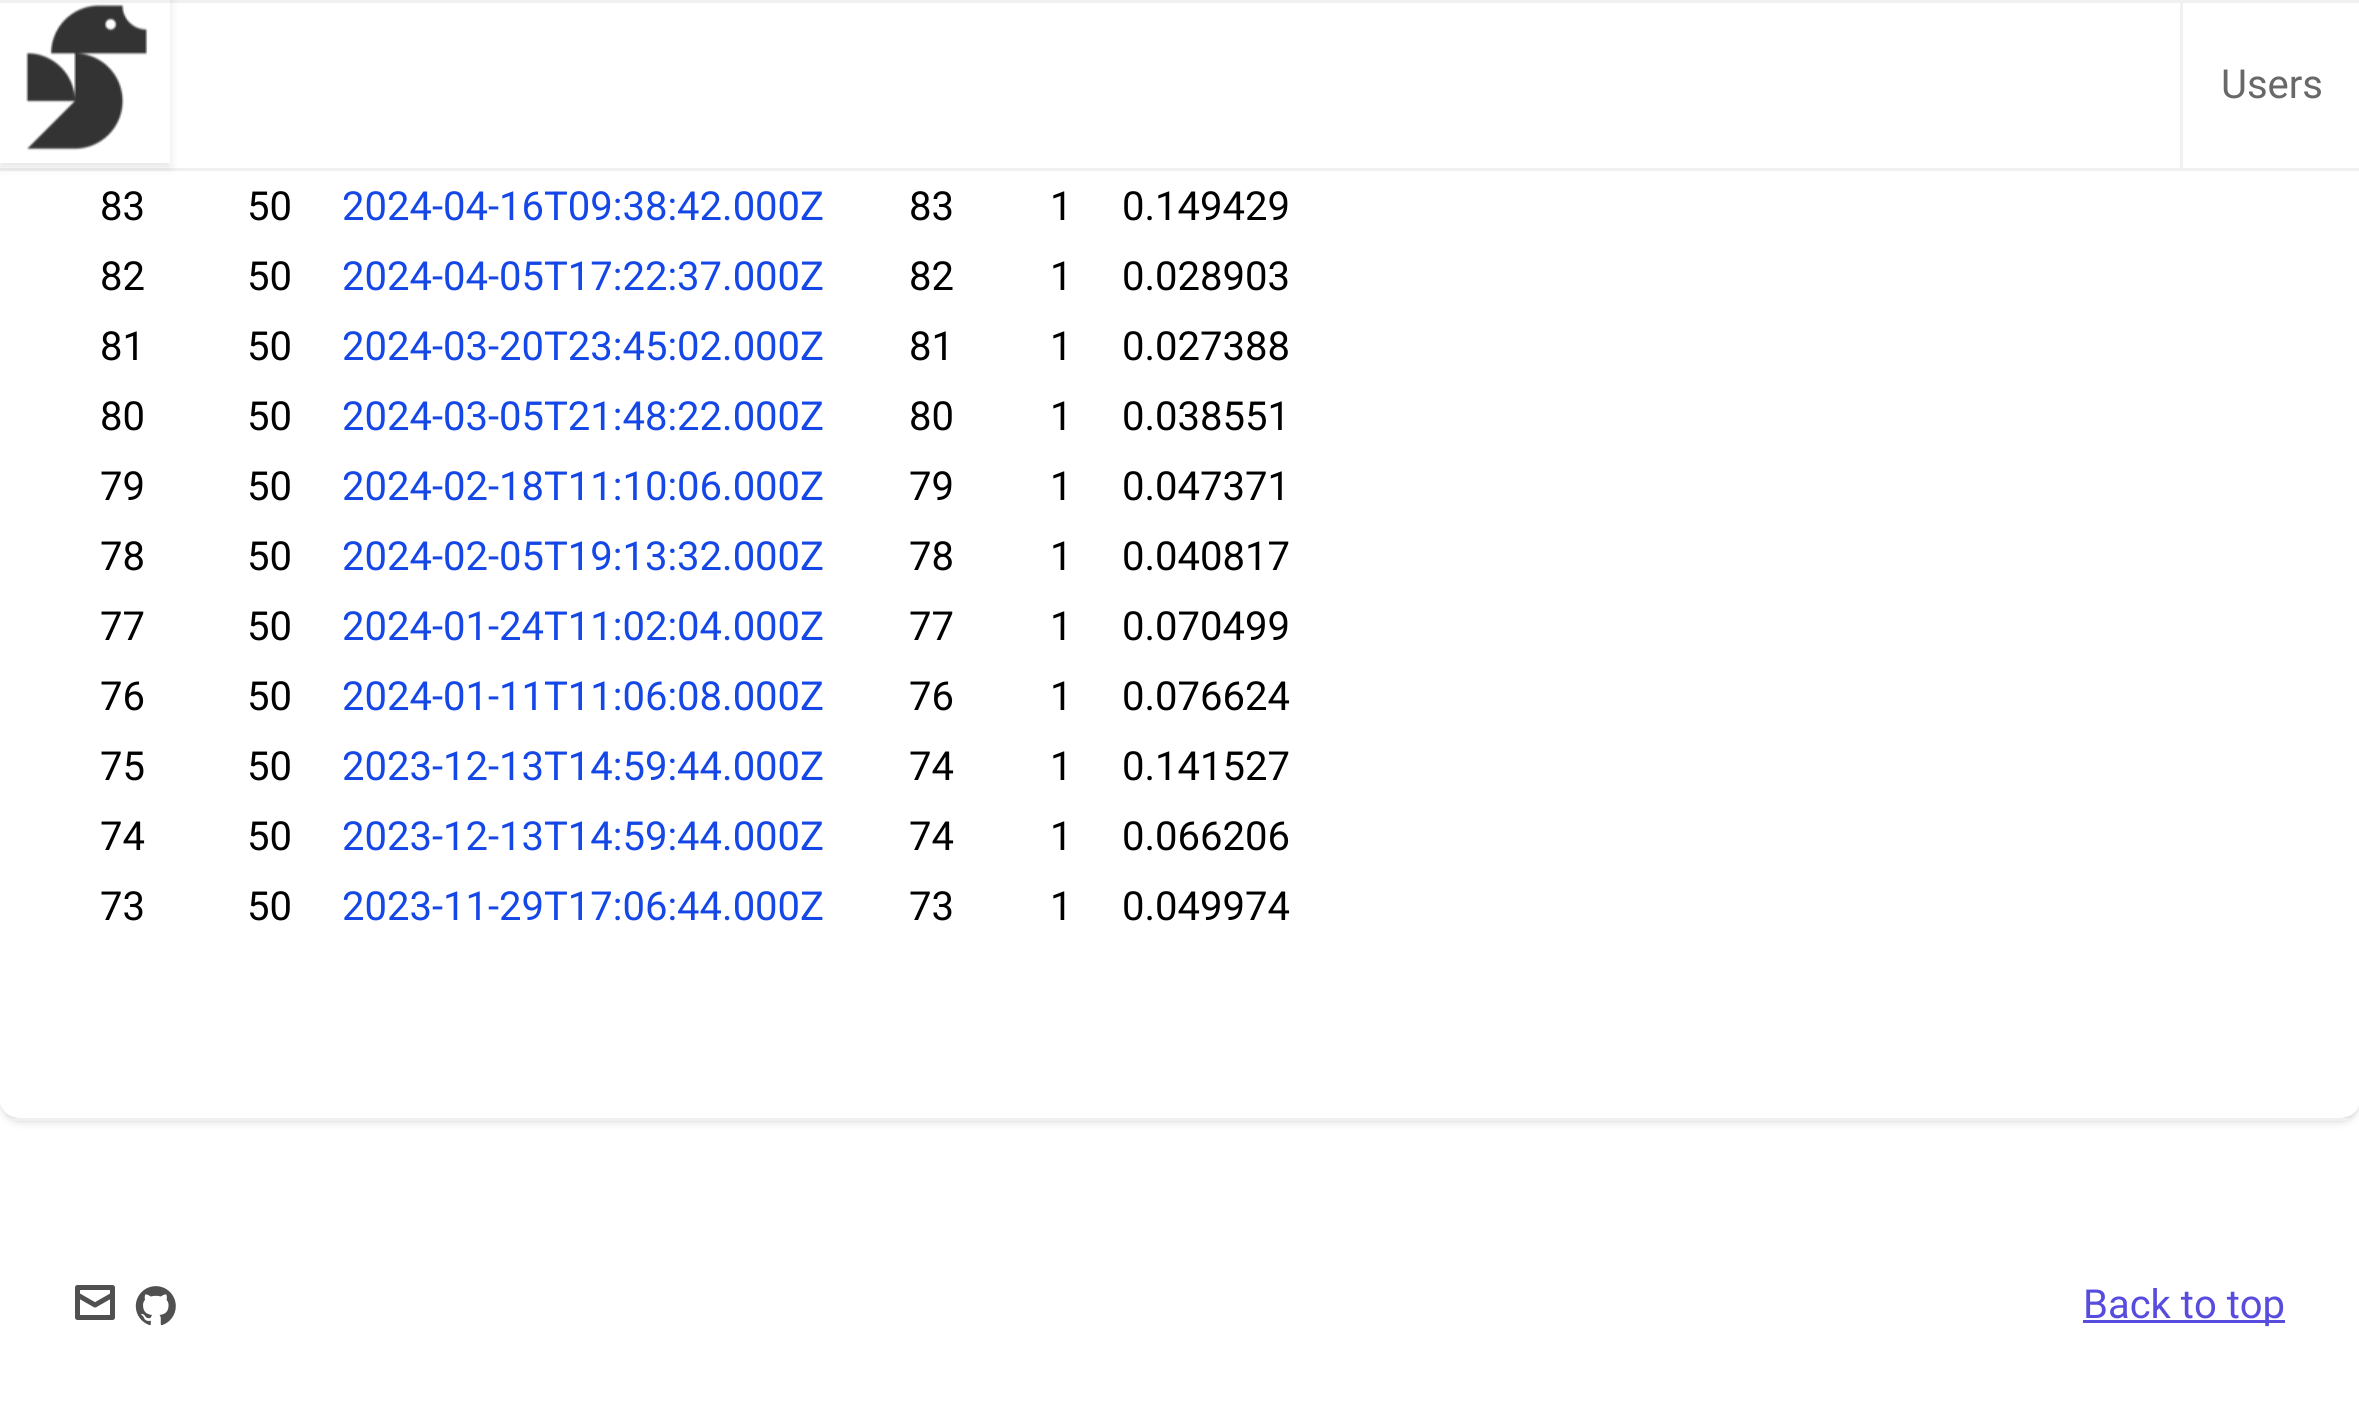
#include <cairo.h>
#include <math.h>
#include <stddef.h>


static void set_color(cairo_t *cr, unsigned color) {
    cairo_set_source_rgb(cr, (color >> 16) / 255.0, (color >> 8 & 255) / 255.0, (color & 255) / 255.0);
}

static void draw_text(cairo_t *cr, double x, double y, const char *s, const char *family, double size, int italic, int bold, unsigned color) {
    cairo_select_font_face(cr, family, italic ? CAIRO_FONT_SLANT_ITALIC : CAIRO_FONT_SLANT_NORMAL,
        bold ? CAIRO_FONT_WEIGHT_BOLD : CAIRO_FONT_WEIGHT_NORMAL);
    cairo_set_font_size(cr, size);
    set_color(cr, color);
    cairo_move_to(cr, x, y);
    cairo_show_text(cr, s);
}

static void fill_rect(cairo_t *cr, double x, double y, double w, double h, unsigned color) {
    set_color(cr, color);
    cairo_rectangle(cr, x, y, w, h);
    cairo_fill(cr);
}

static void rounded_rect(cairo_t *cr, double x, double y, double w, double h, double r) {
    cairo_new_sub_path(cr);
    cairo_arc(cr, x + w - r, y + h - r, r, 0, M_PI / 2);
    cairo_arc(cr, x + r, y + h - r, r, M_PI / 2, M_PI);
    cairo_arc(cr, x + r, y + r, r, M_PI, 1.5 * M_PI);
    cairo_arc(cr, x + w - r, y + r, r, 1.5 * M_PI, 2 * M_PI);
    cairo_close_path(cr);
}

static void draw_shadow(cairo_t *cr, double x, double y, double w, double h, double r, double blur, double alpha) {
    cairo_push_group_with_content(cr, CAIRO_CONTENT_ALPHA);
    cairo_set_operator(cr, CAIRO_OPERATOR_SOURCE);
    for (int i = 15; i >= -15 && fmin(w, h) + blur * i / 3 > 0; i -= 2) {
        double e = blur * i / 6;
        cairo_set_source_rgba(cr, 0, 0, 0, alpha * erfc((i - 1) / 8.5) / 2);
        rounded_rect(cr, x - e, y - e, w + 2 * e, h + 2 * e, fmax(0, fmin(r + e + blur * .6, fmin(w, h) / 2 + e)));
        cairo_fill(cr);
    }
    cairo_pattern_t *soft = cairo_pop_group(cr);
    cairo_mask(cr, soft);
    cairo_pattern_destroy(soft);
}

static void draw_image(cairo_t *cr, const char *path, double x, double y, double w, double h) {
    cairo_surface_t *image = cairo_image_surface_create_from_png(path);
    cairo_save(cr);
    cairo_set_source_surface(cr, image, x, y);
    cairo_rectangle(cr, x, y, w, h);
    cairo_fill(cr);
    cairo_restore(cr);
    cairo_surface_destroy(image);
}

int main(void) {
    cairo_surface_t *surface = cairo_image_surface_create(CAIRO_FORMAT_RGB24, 2359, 1413);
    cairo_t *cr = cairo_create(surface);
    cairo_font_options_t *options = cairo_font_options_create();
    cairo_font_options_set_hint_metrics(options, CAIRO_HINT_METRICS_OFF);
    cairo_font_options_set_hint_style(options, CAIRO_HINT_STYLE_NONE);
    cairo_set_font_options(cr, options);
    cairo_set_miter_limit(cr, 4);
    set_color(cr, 0xFFFFFF);
    cairo_paint(cr);
    set_color(cr, 0x000000);
    draw_shadow(cr, 3, -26, 2355, 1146, 18, 2.5, 0.1);
    draw_shadow(cr, 0, -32, 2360, 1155, 20, 4, 0.1);
    set_color(cr, 0xFFFFFF);
    cairo_new_path(cr);
    cairo_move_to(cr, 20, -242);
    cairo_line_to(cr, 2340, -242);
    cairo_curve_to(cr, 2351, -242, 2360, -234, 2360, -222);
    cairo_line_to(cr, 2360, 1100);
    cairo_curve_to(cr, 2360, 1110, 2351, 1118, 2340, 1118);
    cairo_line_to(cr, 20, 1118);
    cairo_curve_to(cr, 9, 1118, 0, 1110, 0, 1100);
    cairo_line_to(cr, 0, -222);
    cairo_curve_to(cr, 0, -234, 9, -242, 20, -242);
    cairo_close_path(cr);
    cairo_fill(cr);
    fill_rect(cr, 0, 0, 2359, 3, 0xF0F0F0);
    fill_rect(cr, 0, 168, 2359, 3, 0xF0F0F0);
    cairo_save(cr);
    cairo_set_fill_rule(cr, CAIRO_FILL_RULE_EVEN_ODD);
    cairo_new_path(cr);
    cairo_move_to(cr, 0, 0);
    cairo_line_to(cr, 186, 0);
    cairo_line_to(cr, 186, 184);
    cairo_line_to(cr, 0, 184);
    cairo_close_path(cr);
    cairo_move_to(cr, 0, -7);
    cairo_line_to(cr, 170, -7);
    cairo_line_to(cr, 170, 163);
    cairo_line_to(cr, 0, 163);
    cairo_close_path(cr);
    cairo_clip(cr);
    set_color(cr, 0x000000);
    draw_shadow(cr, 0, -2, 170, 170, 0, 5, 0.1);
    cairo_restore(cr);
    draw_image(cr, "assets/img1.png", 26, 4, 122, 147);
    fill_rect(cr, 2180, 0, 3, 170, 0xF0F0F0);
    draw_text(cr, 2221, 98, "Users", "Roboto", 40, 0, 0, 0x686868);
    fill_rect(cr, 10, 1118, 2340, 3, 0xF0F0F0);
    draw_text(cr, 100, 220, "83", "Roboto", 40, 0, 0, 0x000000);
    draw_text(cr, 247, 220, "50", "Roboto", 40, 0, 0, 0x000000);
    draw_text(cr, 342, 220, "2024-04-16T09:38:42.000Z", "Roboto", 40, 0, 0, 0x1447E6);
    draw_text(cr, 909, 220, "83", "Roboto", 40, 0, 0, 0x000000);
    draw_text(cr, 1050, 220, "1", "Roboto", 40, 0, 0, 0x000000);
    draw_text(cr, 1122, 220, "0.149429", "Roboto", 40, 0, 0, 0x000000);
    draw_text(cr, 100, 290, "82", "Roboto", 40, 0, 0, 0x000000);
    draw_text(cr, 247, 290, "50", "Roboto", 40, 0, 0, 0x000000);
    draw_text(cr, 342, 290, "2024-04-05T17:22:37.000Z", "Roboto", 40, 0, 0, 0x1447E6);
    draw_text(cr, 909, 290, "82", "Roboto", 40, 0, 0, 0x000000);
    draw_text(cr, 1050, 290, "1", "Roboto", 40, 0, 0, 0x000000);
    draw_text(cr, 1122, 290, "0.028903", "Roboto", 40, 0, 0, 0x000000);
    draw_text(cr, 100, 360, "81", "Roboto", 40, 0, 0, 0x000000);
    draw_text(cr, 247, 360, "50", "Roboto", 40, 0, 0, 0x000000);
    draw_text(cr, 342, 360, "2024-03-20T23:45:02.000Z", "Roboto", 40, 0, 0, 0x1447E6);
    draw_text(cr, 909, 360, "81", "Roboto", 40, 0, 0, 0x000000);
    draw_text(cr, 1050, 360, "1", "Roboto", 40, 0, 0, 0x000000);
    draw_text(cr, 1122, 360, "0.027388", "Roboto", 40, 0, 0, 0x000000);
    draw_text(cr, 100, 430, "80", "Roboto", 40, 0, 0, 0x000000);
    draw_text(cr, 247, 430, "50", "Roboto", 40, 0, 0, 0x000000);
    draw_text(cr, 342, 430, "2024-03-05T21:48:22.000Z", "Roboto", 40, 0, 0, 0x1447E6);
    draw_text(cr, 909, 430, "80", "Roboto", 40, 0, 0, 0x000000);
    draw_text(cr, 1050, 430, "1", "Roboto", 40, 0, 0, 0x000000);
    draw_text(cr, 1122, 430, "0.038551", "Roboto", 40, 0, 0, 0x000000);
    draw_text(cr, 100, 500, "79", "Roboto", 40, 0, 0, 0x000000);
    draw_text(cr, 247, 500, "50", "Roboto", 40, 0, 0, 0x000000);
    draw_text(cr, 342, 500, "2024-02-18T11:10:06.000Z", "Roboto", 40, 0, 0, 0x1447E6);
    draw_text(cr, 909, 500, "79", "Roboto", 40, 0, 0, 0x000000);
    draw_text(cr, 1050, 500, "1", "Roboto", 40, 0, 0, 0x000000);
    draw_text(cr, 1122, 500, "0.047371", "Roboto", 40, 0, 0, 0x000000);
    draw_text(cr, 100, 570, "78", "Roboto", 40, 0, 0, 0x000000);
    draw_text(cr, 247, 570, "50", "Roboto", 40, 0, 0, 0x000000);
    draw_text(cr, 342, 570, "2024-02-05T19:13:32.000Z", "Roboto", 40, 0, 0, 0x1447E6);
    draw_text(cr, 909, 570, "78", "Roboto", 40, 0, 0, 0x000000);
    draw_text(cr, 1050, 570, "1", "Roboto", 40, 0, 0, 0x000000);
    draw_text(cr, 1122, 570, "0.040817", "Roboto", 40, 0, 0, 0x000000);
    draw_text(cr, 100, 640, "77", "Roboto", 40, 0, 0, 0x000000);
    draw_text(cr, 247, 640, "50", "Roboto", 40, 0, 0, 0x000000);
    draw_text(cr, 342, 640, "2024-01-24T11:02:04.000Z", "Roboto", 40, 0, 0, 0x1447E6);
    draw_text(cr, 909, 640, "77", "Roboto", 40, 0, 0, 0x000000);
    draw_text(cr, 1050, 640, "1", "Roboto", 40, 0, 0, 0x000000);
    draw_text(cr, 1122, 640, "0.070499", "Roboto", 40, 0, 0, 0x000000);
    draw_text(cr, 100, 710, "76", "Roboto", 40, 0, 0, 0x000000);
    draw_text(cr, 247, 710, "50", "Roboto", 40, 0, 0, 0x000000);
    draw_text(cr, 342, 710, "2024-01-11T11:06:08.000Z", "Roboto", 40, 0, 0, 0x1447E6);
    draw_text(cr, 909, 710, "76", "Roboto", 40, 0, 0, 0x000000);
    draw_text(cr, 1050, 710, "1", "Roboto", 40, 0, 0, 0x000000);
    draw_text(cr, 1122, 710, "0.076624", "Roboto", 40, 0, 0, 0x000000);
    draw_text(cr, 100, 780, "75", "Roboto", 40, 0, 0, 0x000000);
    draw_text(cr, 247, 780, "50", "Roboto", 40, 0, 0, 0x000000);
    draw_text(cr, 342, 780, "2023-12-13T14:59:44.000Z", "Roboto", 40, 0, 0, 0x1447E6);
    draw_text(cr, 909, 780, "74", "Roboto", 40, 0, 0, 0x000000);
    draw_text(cr, 1050, 780, "1", "Roboto", 40, 0, 0, 0x000000);
    draw_text(cr, 1122, 780, "0.141527", "Roboto", 40, 0, 0, 0x000000);
    draw_text(cr, 100, 850, "74", "Roboto", 40, 0, 0, 0x000000);
    draw_text(cr, 247, 850, "50", "Roboto", 40, 0, 0, 0x000000);
    draw_text(cr, 342, 850, "2023-12-13T14:59:44.000Z", "Roboto", 40, 0, 0, 0x1447E6);
    draw_text(cr, 909, 850, "74", "Roboto", 40, 0, 0, 0x000000);
    draw_text(cr, 1050, 850, "1", "Roboto", 40, 0, 0, 0x000000);
    draw_text(cr, 1122, 850, "0.066206", "Roboto", 40, 0, 0, 0x000000);
    draw_text(cr, 100, 920, "73", "Roboto", 40, 0, 0, 0x000000);
    draw_text(cr, 247, 920, "50", "Roboto", 40, 0, 0, 0x000000);
    draw_text(cr, 342, 920, "2023-11-29T17:06:44.000Z", "Roboto", 40, 0, 0, 0x1447E6);
    draw_text(cr, 909, 920, "73", "Roboto", 40, 0, 0, 0x000000);
    draw_text(cr, 1050, 920, "1", "Roboto", 40, 0, 0, 0x000000);
    draw_text(cr, 1122, 920, "0.049974", "Roboto", 40, 0, 0, 0x000000);
    draw_image(cr, "assets/img2.png", 75, 1285, 40, 35);
    draw_image(cr, "assets/img3.png", 135, 1286, 41, 40);
    fill_rect(cr, 2083, 1320, 202, 3, 0x574CDD);
    draw_text(cr, 2083, 1318, "Back to top", "Roboto", 40, 0, 0, 0x574CDD);
    cairo_surface_write_to_png(surface, "output.png");
    cairo_font_options_destroy(options);
    cairo_destroy(cr);
    cairo_surface_destroy(surface);
    return 0;
}
